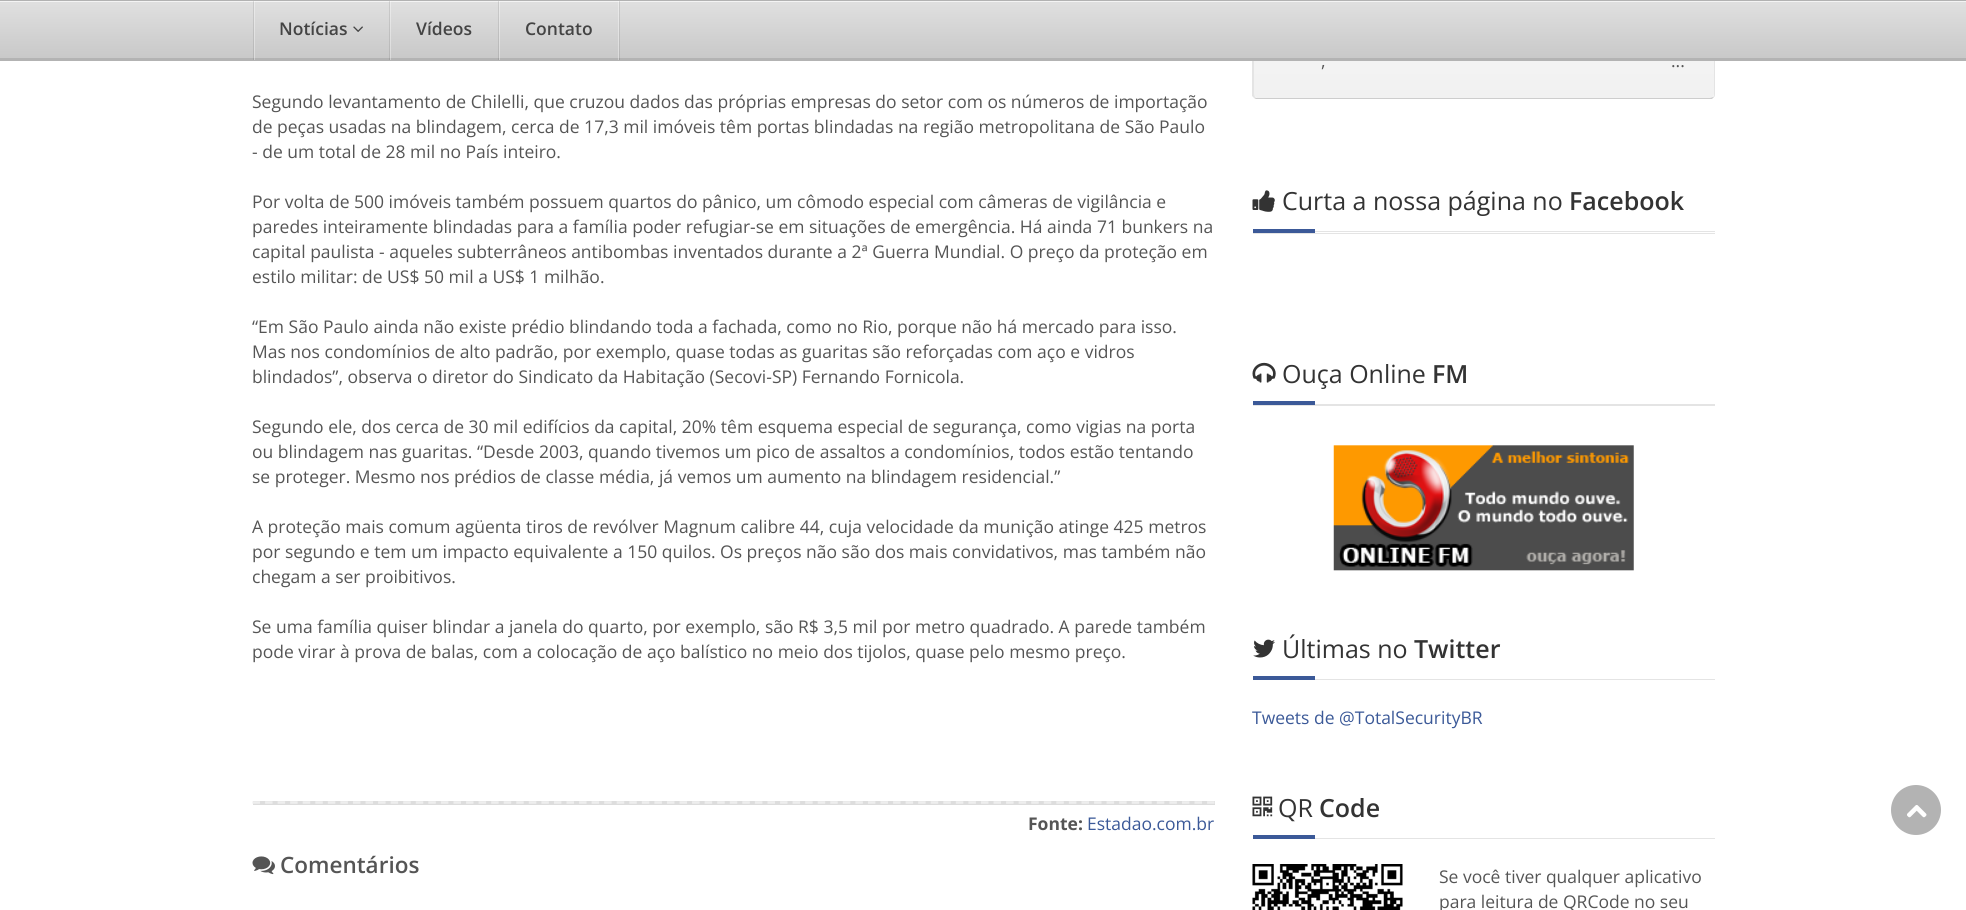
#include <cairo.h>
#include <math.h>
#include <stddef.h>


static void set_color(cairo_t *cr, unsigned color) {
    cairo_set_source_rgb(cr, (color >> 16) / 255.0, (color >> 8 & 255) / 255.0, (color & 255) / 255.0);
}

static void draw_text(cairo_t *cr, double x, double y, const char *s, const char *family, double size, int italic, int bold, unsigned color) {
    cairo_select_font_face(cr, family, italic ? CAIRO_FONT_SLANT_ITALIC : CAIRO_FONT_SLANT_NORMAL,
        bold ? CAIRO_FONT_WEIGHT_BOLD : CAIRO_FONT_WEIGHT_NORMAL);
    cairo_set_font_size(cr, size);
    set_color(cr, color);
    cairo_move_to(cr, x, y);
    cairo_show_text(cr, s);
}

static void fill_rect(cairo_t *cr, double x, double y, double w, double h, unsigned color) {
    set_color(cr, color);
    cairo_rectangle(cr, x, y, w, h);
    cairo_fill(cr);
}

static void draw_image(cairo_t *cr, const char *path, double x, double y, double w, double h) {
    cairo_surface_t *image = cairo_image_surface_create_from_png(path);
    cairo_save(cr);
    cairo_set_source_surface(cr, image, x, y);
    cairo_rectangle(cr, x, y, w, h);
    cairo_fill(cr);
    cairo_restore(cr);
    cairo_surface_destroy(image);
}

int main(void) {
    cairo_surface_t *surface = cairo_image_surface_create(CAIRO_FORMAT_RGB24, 1966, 910);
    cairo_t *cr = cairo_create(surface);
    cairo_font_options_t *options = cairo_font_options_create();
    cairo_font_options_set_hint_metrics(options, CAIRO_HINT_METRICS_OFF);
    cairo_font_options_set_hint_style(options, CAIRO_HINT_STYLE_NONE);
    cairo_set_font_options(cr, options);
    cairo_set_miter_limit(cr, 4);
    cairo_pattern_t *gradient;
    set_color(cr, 0xFFFFFF);
    cairo_paint(cr);
    gradient = cairo_pattern_create_linear(1484, -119, 1484, 98);
    cairo_pattern_add_color_stop_rgba(gradient, 0, 1, 1, 1, 1);
    cairo_pattern_add_color_stop_rgba(gradient, 1, 0.945, 0.945, 0.945, 1);
    cairo_set_source(cr, gradient);
    cairo_pattern_destroy(gradient);
    cairo_new_path(cr);
    cairo_move_to(cr, 1254, -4);
    cairo_line_to(cr, 1714, -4);
    cairo_line_to(cr, 1714, 94);
    cairo_curve_to(cr, 1714, 96, 1712, 98, 1710, 98);
    cairo_line_to(cr, 1258, 98);
    cairo_curve_to(cr, 1256, 98, 1254, 96, 1254, 94);
    cairo_close_path(cr);
    cairo_fill(cr);
    set_color(cr, 0xE4E4E4);
    cairo_new_path(cr);
    cairo_move_to(cr, 1715, -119);
    cairo_line_to(cr, 1714, -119);
    cairo_line_to(cr, 1714, 94);
    cairo_curve_to(cr, 1714, 95, 1714, 96, 1713, 97);
    cairo_line_to(cr, 1714, 97);
    cairo_curve_to(cr, 1715, 97, 1715, 95, 1715, 94);
    cairo_close_path(cr);
    cairo_fill(cr);
    set_color(cr, 0xCDCDCD);
    cairo_new_path(cr);
    cairo_move_to(cr, 1256, 99);
    cairo_line_to(cr, 1254, 98);
    cairo_line_to(cr, 1255, 97);
    cairo_curve_to(cr, 1255, 98, 1257, 98, 1258, 98);
    cairo_line_to(cr, 1710, 98);
    cairo_line_to(cr, 1713, 97);
    cairo_line_to(cr, 1714, 97);
    cairo_line_to(cr, 1712, 99);
    cairo_close_path(cr);
    cairo_fill(cr);
    set_color(cr, 0xE4E4E4);
    cairo_new_path(cr);
    cairo_move_to(cr, 1254, 98);
    cairo_line_to(cr, 1252, 96);
    cairo_line_to(cr, 1252, -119);
    cairo_line_to(cr, 1254, -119);
    cairo_line_to(cr, 1254, 94);
    cairo_line_to(cr, 1255, 97);
    cairo_close_path(cr);
    cairo_fill(cr);
    gradient = cairo_pattern_create_linear(983, 1.2, 983, 60);
    cairo_pattern_add_color_stop_rgba(gradient, 0, 0.878, 0.878, 0.878, 1);
    cairo_pattern_add_color_stop_rgba(gradient, 1, 0.784, 0.784, 0.784, 1);
    cairo_set_source(cr, gradient);
    cairo_pattern_destroy(gradient);
    cairo_rectangle(cr, 0, 2, 1966, 56);
    cairo_fill(cr);
    fill_rect(cr, 0, 58, 1966, 3, 0xB3B3B3);
    fill_rect(cr, 0, 1, 1966, 1, 0xF4F4F4);
    fill_rect(cr, 0, 0, 1966, 1, 0xB2B2B2);
    cairo_set_source_rgba(cr, 0.039, 0.039, 0.039, 0.1);
    cairo_rectangle(cr, 389, 1, 1, 59);
    cairo_fill(cr);
    cairo_rectangle(cr, 253, 1, 1, 59);
    cairo_fill(cr);
    cairo_set_source_rgba(cr, 1, 1, 1, 0.35);
    cairo_rectangle(cr, 254, 1, 1, 59);
    cairo_fill(cr);
    draw_text(cr, 279, 35, "Notícias", "Open Sans SemiBold", 17.5, 0, 0, 0x444444);
    draw_image(cr, "assets/img1.png", 353, 26, 10, 6);
    cairo_set_source_rgba(cr, 0.039, 0.039, 0.039, 0.1);
    cairo_rectangle(cr, 498, 1, 1, 59);
    cairo_fill(cr);
    cairo_set_source_rgba(cr, 1, 1, 1, 0.35);
    cairo_rectangle(cr, 390, 1, 1, 59);
    cairo_fill(cr);
    draw_text(cr, 416, 35, "Vídeos", "Open Sans SemiBold", 17.5, 0, 0, 0x444444);
    cairo_set_source_rgba(cr, 0.039, 0.039, 0.039, 0.1);
    cairo_rectangle(cr, 619, 1, 1, 59);
    cairo_fill(cr);
    cairo_set_source_rgba(cr, 1, 1, 1, 0.35);
    cairo_rectangle(cr, 618, 1, 1, 59);
    cairo_fill(cr);
    cairo_rectangle(cr, 499, 1, 1, 59);
    cairo_fill(cr);
    draw_text(cr, 525, 35, "Contato", "Open Sans SemiBold", 17.5, 0, 0, 0x444444);
    draw_text(cr, 252, 108, "Segundo levantamento de Chilelli, que cruzou dados das próprias empresas do setor com os números de importação", "Open Sans", 17.5, 0, 0, 0x555555);
    draw_text(cr, 252, 133, "de peças usadas na blindagem, cerca de 17,3 mil imóveis têm portas blindadas na região metropolitana de São Paulo", "Open Sans", 17.5, 0, 0, 0x555555);
    draw_text(cr, 252, 158, "- de um total de 28 mil no País inteiro.", "Open Sans", 17.5, 0, 0, 0x555555);
    draw_text(cr, 252, 208, "Por volta de 500 imóveis também possuem quartos do pânico, um cômodo especial com câmeras de vigilância e", "Open Sans", 17.5, 0, 0, 0x555555);
    draw_text(cr, 252, 233, "paredes inteiramente blindadas para a família poder refugiar-se em situações de emergência. Há ainda 71 bunkers na", "Open Sans", 17.5, 0, 0, 0x555555);
    draw_text(cr, 252, 258, "capital paulista - aqueles subterrâneos antibombas inventados durante a 2ª Guerra Mundial. O preço da proteção em", "Open Sans", 17.5, 0, 0, 0x555555);
    draw_text(cr, 252, 283, "estilo militar: de US$ 50 mil a US$ 1 milhão.", "Open Sans", 17.5, 0, 0, 0x555555);
    draw_text(cr, 252, 333, "“Em São Paulo ainda não existe prédio blindando toda a fachada, como no Rio, porque não há mercado para isso.", "Open Sans", 17.5, 0, 0, 0x555555);
    draw_text(cr, 252, 358, "Mas nos condomínios de alto padrão, por exemplo, quase todas as guaritas são reforçadas com aço e vidros", "Open Sans", 17.5, 0, 0, 0x555555);
    draw_text(cr, 252, 383, "blindados”, observa o diretor do Sindicato da Habitação (Secovi-SP) Fernando Fornicola.", "Open Sans", 17.5, 0, 0, 0x555555);
    draw_text(cr, 252, 433, "Segundo ele, dos cerca de 30 mil edifícios da capital, 20% têm esquema especial de segurança, como vigias na porta", "Open Sans", 17.5, 0, 0, 0x555555);
    draw_text(cr, 252, 458, "ou blindagem nas guaritas. “Desde 2003, quando tivemos um pico de assaltos a condomínios, todos estão tentando", "Open Sans", 17.5, 0, 0, 0x555555);
    draw_text(cr, 252, 483, "se proteger. Mesmo nos prédios de classe média, já vemos um aumento na blindagem residencial.”", "Open Sans", 17.5, 0, 0, 0x555555);
    draw_text(cr, 252, 533, "A proteção mais comum agüenta tiros de revólver Magnum calibre 44, cuja velocidade da munição atinge 425 metros", "Open Sans", 17.5, 0, 0, 0x555555);
    draw_text(cr, 252, 558, "por segundo e tem um impacto equivalente a 150 quilos. Os preços não são dos mais convidativos, mas também não", "Open Sans", 17.5, 0, 0, 0x555555);
    draw_text(cr, 252, 583, "chegam a ser proibitivos.", "Open Sans", 17.5, 0, 0, 0x555555);
    draw_text(cr, 252, 633, "Se uma família quiser blindar a janela do quarto, por exemplo, são R$ 3,5 mil por metro quadrado. A parede também", "Open Sans", 17.5, 0, 0, 0x555555);
    draw_text(cr, 252, 658, "pode virar à prova de balas, com a colocação de aço balístico no meio dos tijolos, quase pelo mesmo preço.", "Open Sans", 17.5, 0, 0, 0x555555);
    fill_rect(cr, 253, 801, 962, 4, 0xDDDDDD);
    cairo_new_path(cr);
    cairo_move_to(cr, 252.5, 802.5);
    cairo_line_to(cr, 1215, 802.5);
    set_color(cr, 0xEEEEEE);
    cairo_set_line_width(cr, 2.5);
    cairo_set_dash(cr, (double[]){7.5, 5.06}, 2, 0);
    cairo_stroke(cr);
    draw_text(cr, 1028, 830, "Fonte:", "Open Sans", 17.5, 0, 1, 0x555555);
    draw_text(cr, 1087, 830, "Estadao.com.br", "Open Sans", 17.5, 0, 0, 0x3B5998);
    draw_image(cr, "assets/img2.png", 252, 856, 23, 19);
    draw_text(cr, 280, 873, "Comentários", "Open Sans SemiBold", 22.5, 0, 0, 0x555555);
    draw_text(cr, 1321, 67, ",", "Open Sans", 17.5, 0, 0, 0x555555);
    draw_text(cr, 1671, 67, "...", "Open Sans", 17.5, 0, 0, 0x555555);
    fill_rect(cr, 1253, 233, 462, 1, 0xE4E4E4);
    fill_rect(cr, 1315, 231, 400, 1, 0xE4E4E4);
    draw_image(cr, "assets/img3.png", 1252, 190, 23, 22);
    draw_text(cr, 1282, 210, "Curta a nossa página no", "Open Sans", 25, 0, 0, 0x333333);
    draw_text(cr, 1569, 210, "Facebook", "Open Sans SemiBold", 25, 0, 0, 0x333333);
    fill_rect(cr, 1253, 229, 62, 4, 0x3B5998);
    fill_rect(cr, 1253, 405, 462, 1, 0xE4E4E4);
    fill_rect(cr, 1315, 404, 400, 1, 0xE4E4E4);
    draw_image(cr, "assets/img4.png", 1252, 362, 24, 21);
    draw_text(cr, 1282, 383, "Ouça Online", "Open Sans", 25, 0, 0, 0x333333);
    draw_text(cr, 1432, 383, "FM", "Open Sans SemiBold", 25, 0, 0, 0x333333);
    fill_rect(cr, 1253, 401, 62, 4, 0x3B5998);
    draw_image(cr, "assets/img5.png", 1333, 444, 302, 127);
    fill_rect(cr, 1315, 679, 400, 1, 0xE4E4E4);
    draw_image(cr, "assets/img6.png", 1253, 639, 22, 19);
    draw_text(cr, 1282, 658, "Últimas no", "Open Sans", 25, 0, 0, 0x333333);
    draw_text(cr, 1414, 658, "Twitter", "Open Sans SemiBold", 25, 0, 0, 0x333333);
    fill_rect(cr, 1253, 676, 62, 4, 0x3B5998);
    draw_text(cr, 1252, 724, "Tweets de @TotalSecurityBR", "Open Sans", 17.5, 0, 0, 0x3B5998);
    fill_rect(cr, 1315, 838, 400, 1, 0xE4E4E4);
    draw_image(cr, "assets/img7.png", 1252, 796, 21, 21);
    draw_text(cr, 1278, 817, "QR", "Open Sans", 25, 0, 0, 0x333333);
    draw_text(cr, 1319, 817, "Code", "Open Sans SemiBold", 25, 0, 0, 0x333333);
    fill_rect(cr, 1253, 835, 62, 4, 0x3B5998);
    draw_image(cr, "assets/img8.png", 1252, 864, 151, 46);
    draw_text(cr, 1439, 883, "Se você tiver qualquer aplicativo", "Open Sans", 17.5, 0, 0, 0x555555);
    draw_text(cr, 1439, 908, "para leitura de QRCode no seu", "Open Sans", 17.5, 0, 0, 0x555555);
    set_color(cr, 0xB3B3B3);
    cairo_new_path(cr);
    cairo_arc(cr, 1916, 810, 25, 0, 2 * M_PI);
    cairo_fill(cr);
    draw_image(cr, "assets/img9.png", 1907, 805, 20, 13);
    cairo_surface_write_to_png(surface, "output.png");
    cairo_font_options_destroy(options);
    cairo_destroy(cr);
    cairo_surface_destroy(surface);
    return 0;
}
